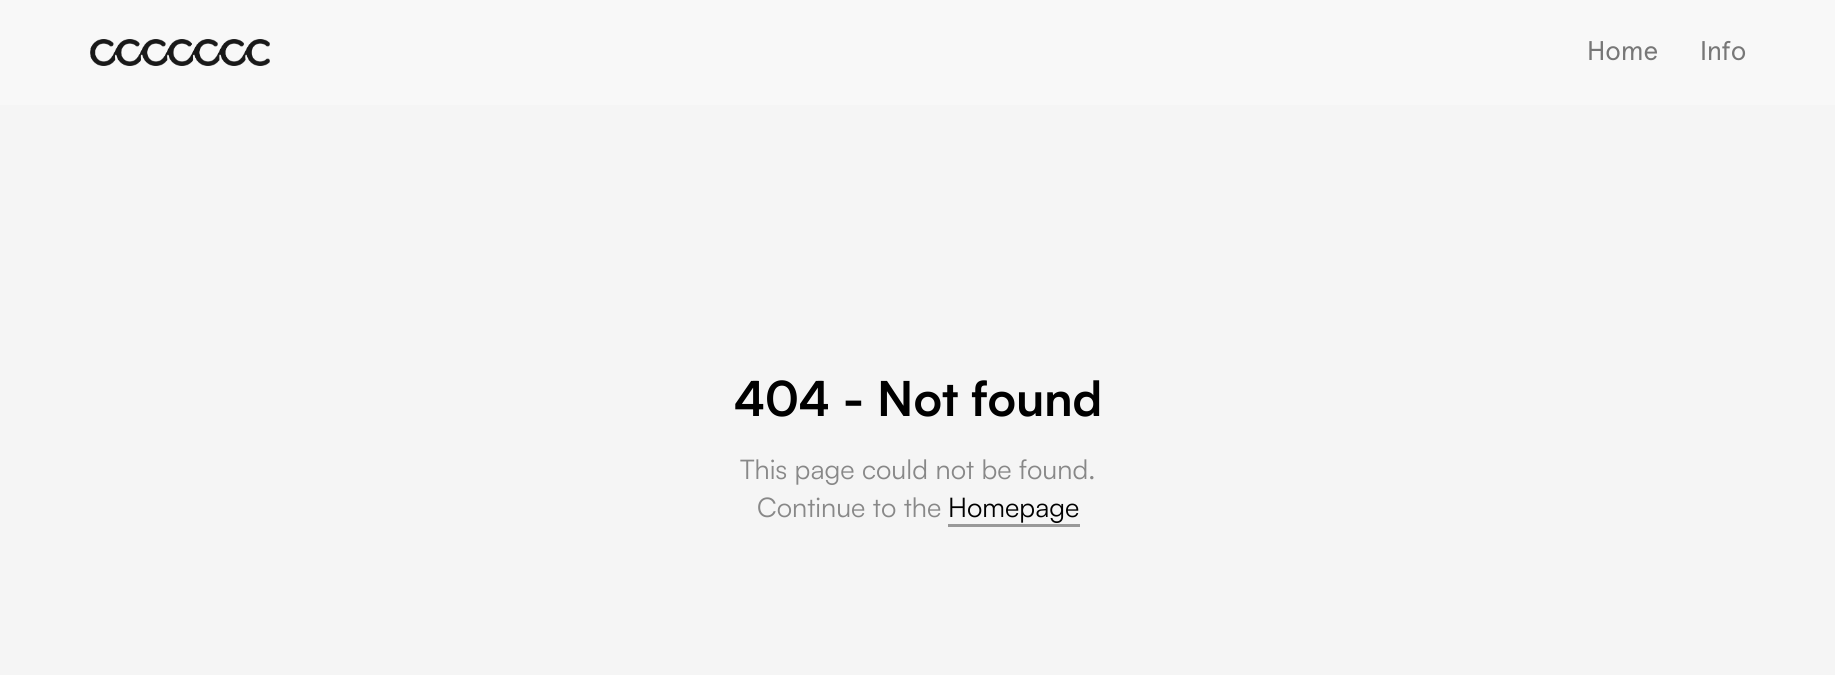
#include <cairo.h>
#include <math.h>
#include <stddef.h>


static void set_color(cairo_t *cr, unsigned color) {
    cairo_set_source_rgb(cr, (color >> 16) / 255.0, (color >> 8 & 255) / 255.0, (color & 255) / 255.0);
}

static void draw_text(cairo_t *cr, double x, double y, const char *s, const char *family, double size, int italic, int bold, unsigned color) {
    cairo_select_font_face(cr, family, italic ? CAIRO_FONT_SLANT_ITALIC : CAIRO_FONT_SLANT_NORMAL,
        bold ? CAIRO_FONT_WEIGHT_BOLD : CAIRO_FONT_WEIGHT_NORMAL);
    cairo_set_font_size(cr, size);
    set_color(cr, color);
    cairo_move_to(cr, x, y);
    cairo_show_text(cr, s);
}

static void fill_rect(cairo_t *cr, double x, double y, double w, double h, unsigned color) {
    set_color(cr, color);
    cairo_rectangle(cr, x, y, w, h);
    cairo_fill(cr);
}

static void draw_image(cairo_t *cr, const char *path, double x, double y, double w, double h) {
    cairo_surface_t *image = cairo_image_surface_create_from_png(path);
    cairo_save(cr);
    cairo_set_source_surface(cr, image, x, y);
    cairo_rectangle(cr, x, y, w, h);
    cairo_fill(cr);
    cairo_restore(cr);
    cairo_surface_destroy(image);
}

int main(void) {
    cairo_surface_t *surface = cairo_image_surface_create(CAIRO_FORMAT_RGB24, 1835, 675);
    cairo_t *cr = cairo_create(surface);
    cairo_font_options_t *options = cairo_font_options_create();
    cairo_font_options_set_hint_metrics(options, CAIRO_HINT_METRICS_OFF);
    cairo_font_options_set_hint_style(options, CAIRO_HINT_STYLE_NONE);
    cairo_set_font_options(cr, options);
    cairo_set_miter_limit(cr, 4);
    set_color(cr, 0xF5F5F5);
    cairo_paint(cr);
    fill_rect(cr, 0, 0, 1835, 105, 0xF8F8F8);
    draw_image(cr, "assets/img1.png", 90, 39, 180, 27);
    draw_text(cr, 1587, 60, "Home", "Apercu", 27, 0, 0, 0x777777);
    draw_text(cr, 1700, 60, "Info", "Apercu", 27, 0, 0, 0x777777);
    draw_text(cr, 734, 416, "404 - Not found", "Satoshi", 48, 0, 1, 0x000000);
    draw_text(cr, 740, 479, "This page could not be found.", "Satoshi", 27, 0, 0, 0x888888);
    draw_text(cr, 757, 517, "Continue to the", "Satoshi", 27, 0, 0, 0x888888);
    draw_text(cr, 948, 517, "Homepage", "Satoshi", 27, 0, 0, 0x000000);
    fill_rect(cr, 948, 524, 132, 3, 0x999999);
    cairo_surface_write_to_png(surface, "output.png");
    cairo_font_options_destroy(options);
    cairo_destroy(cr);
    cairo_surface_destroy(surface);
    return 0;
}
